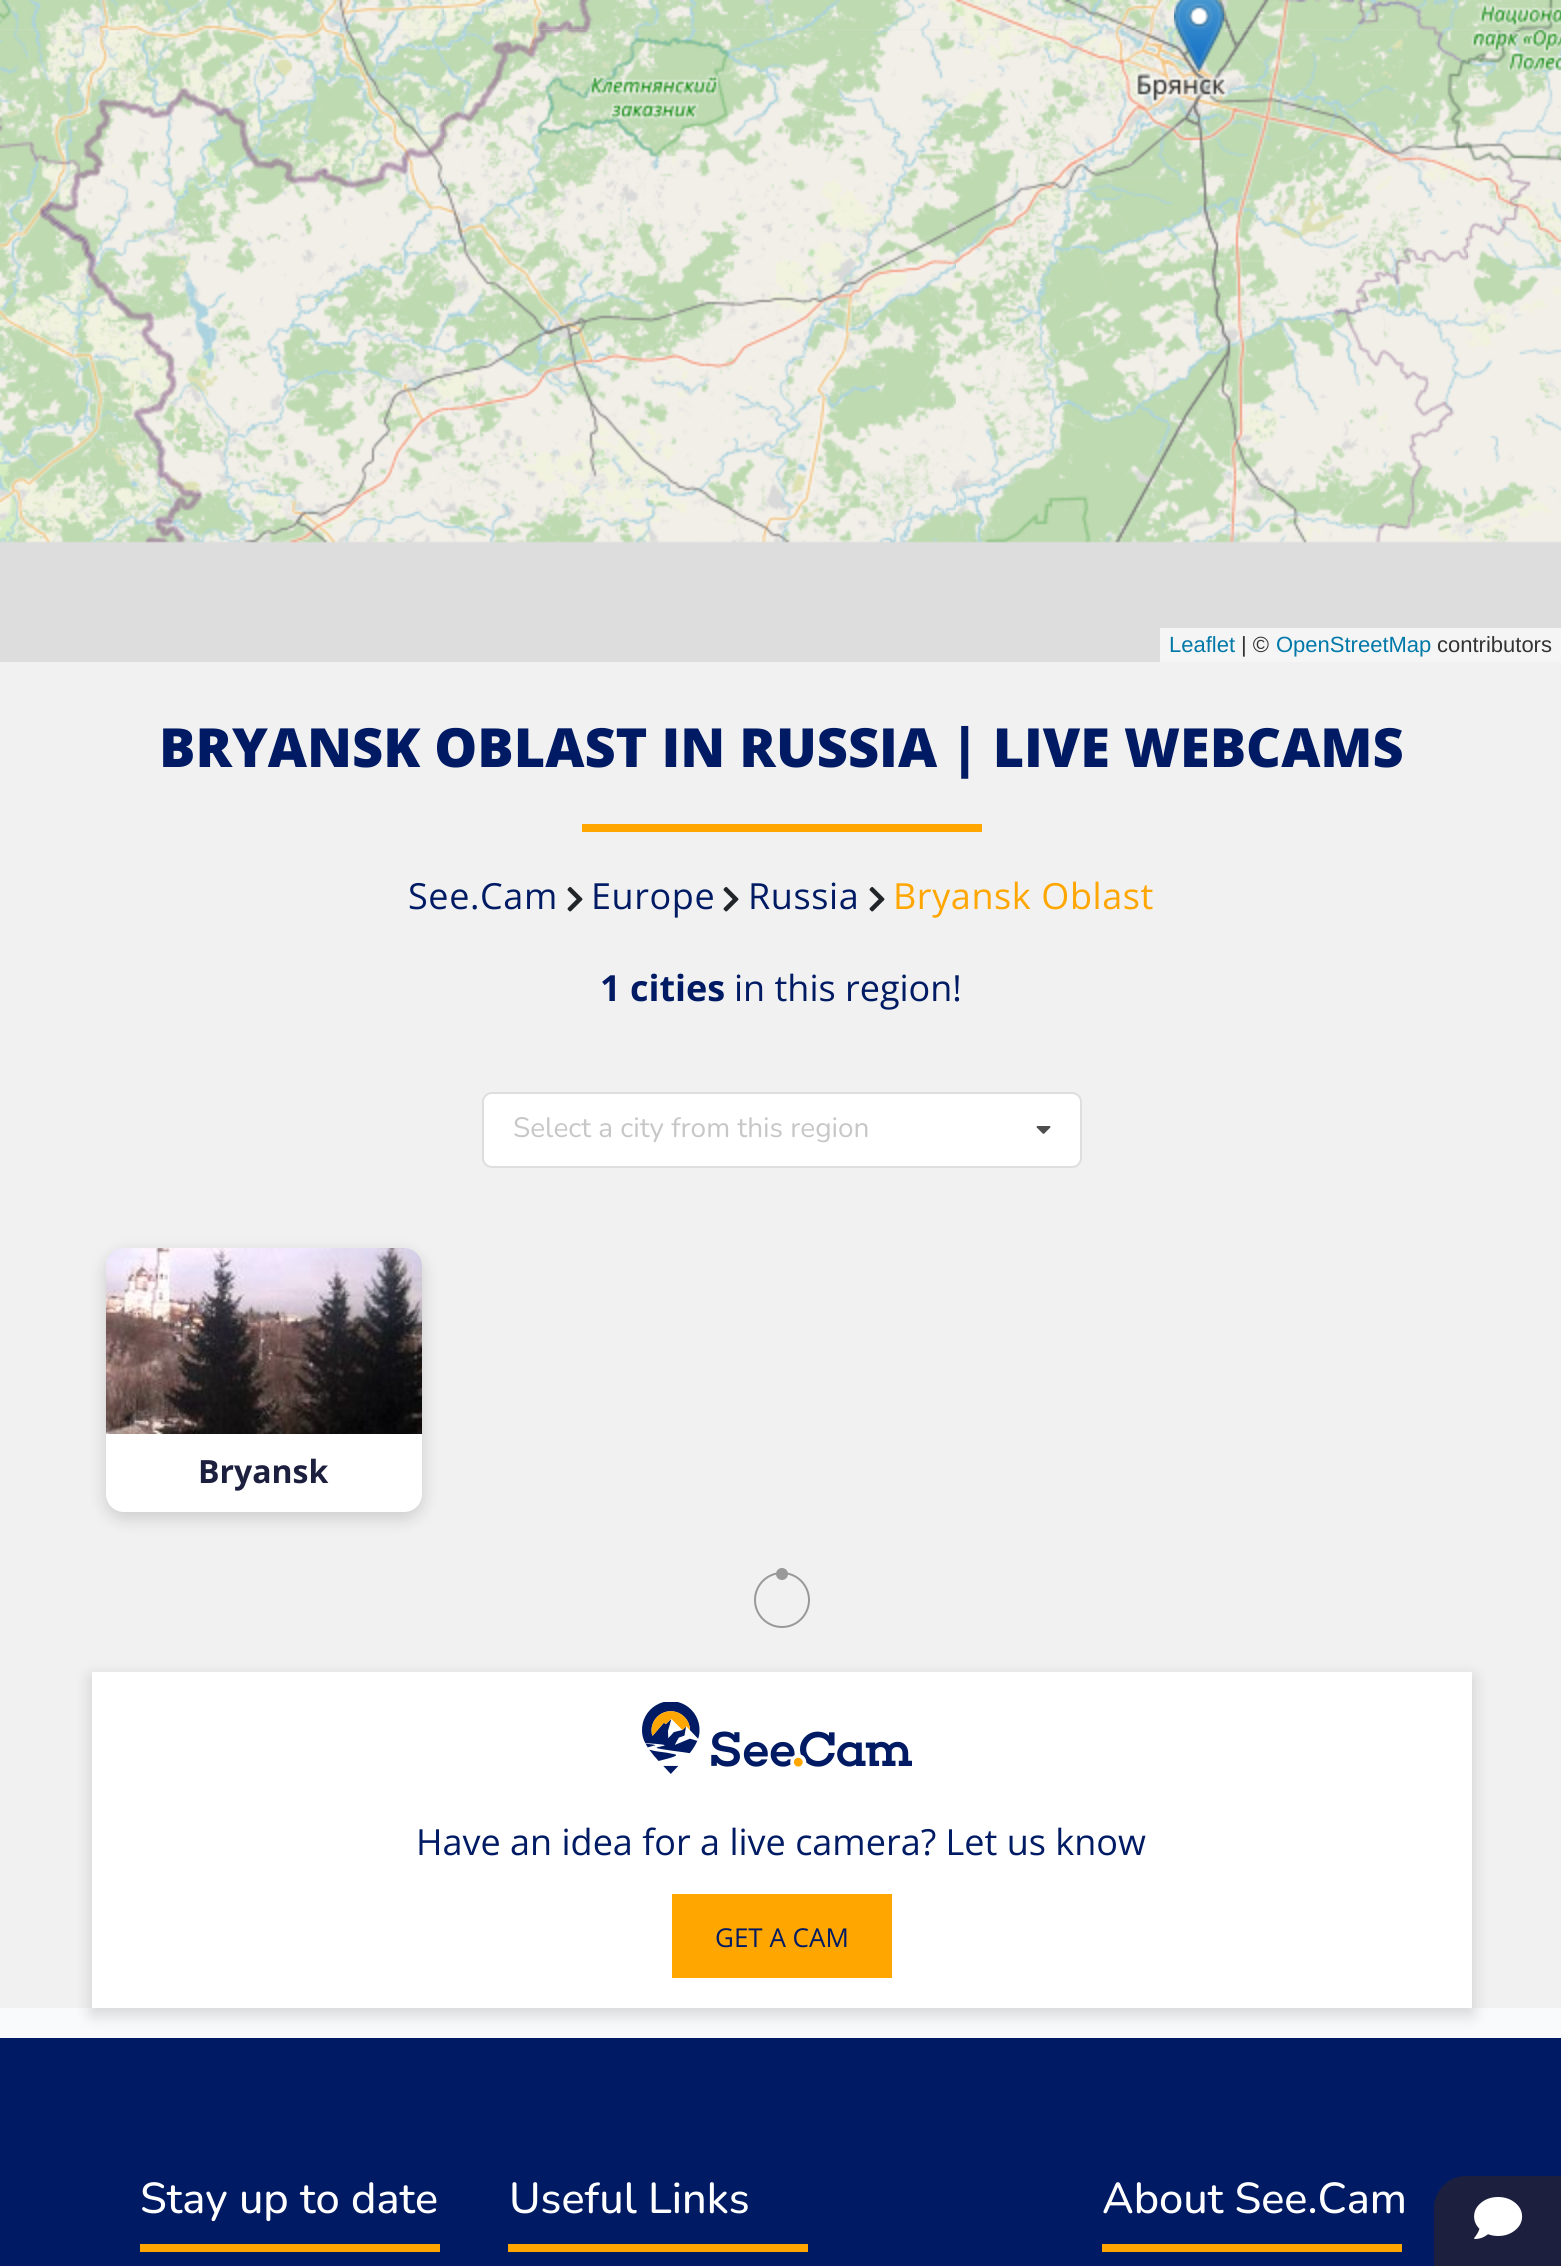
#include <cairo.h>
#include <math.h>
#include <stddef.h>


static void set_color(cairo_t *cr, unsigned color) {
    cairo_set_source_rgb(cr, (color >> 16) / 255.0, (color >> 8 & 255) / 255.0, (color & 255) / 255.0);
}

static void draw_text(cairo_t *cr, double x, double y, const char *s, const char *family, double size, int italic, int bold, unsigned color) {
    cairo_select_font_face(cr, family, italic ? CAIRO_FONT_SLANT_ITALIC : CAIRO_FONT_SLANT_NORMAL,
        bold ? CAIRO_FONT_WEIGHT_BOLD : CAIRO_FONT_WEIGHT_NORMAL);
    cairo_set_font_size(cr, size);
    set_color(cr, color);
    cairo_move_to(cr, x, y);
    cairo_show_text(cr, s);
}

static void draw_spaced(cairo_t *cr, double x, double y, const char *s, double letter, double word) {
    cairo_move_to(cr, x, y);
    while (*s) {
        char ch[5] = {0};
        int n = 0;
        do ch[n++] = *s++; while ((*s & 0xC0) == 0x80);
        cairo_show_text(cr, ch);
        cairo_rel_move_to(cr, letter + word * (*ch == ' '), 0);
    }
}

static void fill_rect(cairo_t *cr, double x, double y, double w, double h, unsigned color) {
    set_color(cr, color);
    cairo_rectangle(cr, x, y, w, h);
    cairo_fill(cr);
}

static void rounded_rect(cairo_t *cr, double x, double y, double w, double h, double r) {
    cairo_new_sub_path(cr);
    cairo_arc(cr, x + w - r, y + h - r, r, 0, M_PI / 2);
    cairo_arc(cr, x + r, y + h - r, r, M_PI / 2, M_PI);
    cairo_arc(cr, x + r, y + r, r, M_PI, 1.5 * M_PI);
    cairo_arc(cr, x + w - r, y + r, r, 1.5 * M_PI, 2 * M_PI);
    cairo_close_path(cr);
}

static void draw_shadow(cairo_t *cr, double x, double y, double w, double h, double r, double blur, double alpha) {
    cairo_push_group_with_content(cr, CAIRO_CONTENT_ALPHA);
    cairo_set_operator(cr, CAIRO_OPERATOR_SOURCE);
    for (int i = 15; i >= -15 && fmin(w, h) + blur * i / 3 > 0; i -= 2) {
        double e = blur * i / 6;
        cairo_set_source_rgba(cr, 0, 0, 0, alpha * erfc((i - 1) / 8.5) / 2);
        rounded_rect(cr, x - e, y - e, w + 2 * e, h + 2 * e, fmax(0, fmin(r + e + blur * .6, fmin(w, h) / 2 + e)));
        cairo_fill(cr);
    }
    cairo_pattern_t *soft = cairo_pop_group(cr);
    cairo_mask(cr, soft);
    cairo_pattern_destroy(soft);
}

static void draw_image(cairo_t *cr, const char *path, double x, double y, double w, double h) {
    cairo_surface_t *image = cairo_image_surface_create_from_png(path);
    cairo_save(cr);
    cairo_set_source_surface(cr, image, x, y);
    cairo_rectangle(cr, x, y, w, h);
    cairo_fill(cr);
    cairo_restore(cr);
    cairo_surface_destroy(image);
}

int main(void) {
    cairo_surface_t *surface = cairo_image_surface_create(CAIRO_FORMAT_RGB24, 1561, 2266);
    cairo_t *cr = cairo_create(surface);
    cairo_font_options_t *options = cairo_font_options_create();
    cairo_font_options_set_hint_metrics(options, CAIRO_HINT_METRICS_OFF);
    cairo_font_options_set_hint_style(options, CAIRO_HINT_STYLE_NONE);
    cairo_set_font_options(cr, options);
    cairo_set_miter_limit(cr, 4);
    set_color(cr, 0xF8FAFC);
    cairo_paint(cr);
    fill_rect(cr, 0, 662, 1561, 1346, 0xF1F1F1);
    fill_rect(cr, 0, 29, 1561, 633, 0xDDDDDD);
    draw_image(cr, "assets/img5.png", 0, 30, 444, 513);
    draw_image(cr, "assets/img1.png", 0, 0, 444, 31);
    draw_image(cr, "assets/img6.png", 444, 30, 512, 513);
    draw_image(cr, "assets/img2.png", 444, 0, 512, 31);
    draw_image(cr, "assets/img7.png", 956, 30, 512, 513);
    draw_image(cr, "assets/img3.png", 956, 0, 512, 31);
    draw_image(cr, "assets/img8.png", 1468, 30, 93, 513);
    draw_image(cr, "assets/img4.png", 1468, 0, 93, 31);
    draw_image(cr, "assets/img9.png", 1174, 0, 50, 72);
    fill_rect(cr, 1160, 628, 401, 34, 0xF5F5F5);
    draw_text(cr, 1169, 652, "Leaflet", "Liberation Sans", 22, 0, 0, 0x0078A8);
    draw_text(cr, 1241, 652, "| ©", "Liberation Sans", 22, 0, 0, 0x333333);
    draw_text(cr, 1276, 652, "OpenStreetMap", "Liberation Sans", 22, 0, 0, 0x0078A8);
    draw_text(cr, 1437, 652, "contributors", "Liberation Sans", 22, 0, 0, 0x333333);
    draw_text(cr, 159, 767, "BRYANSK OBLAST IN RUSSIA | LIVE WEBCAMS", "Open Sans ExtraBold", 54, 0, 0, 0x001B64);
    fill_rect(cr, 582, 824, 400, 8, 0xFFA600);
    cairo_select_font_face(cr, "Open Sans", CAIRO_FONT_SLANT_NORMAL, CAIRO_FONT_WEIGHT_NORMAL);
    cairo_set_font_size(cr, 36);
    set_color(cr, 0x001B64);
    draw_spaced(cr, 408, 909, "See.Cam", 0.6, 0);
    draw_image(cr, "assets/img10.png", 567, 887, 16, 25);
    draw_spaced(cr, 591, 909, "Europe", 0.6, 0);
    draw_image(cr, "assets/img10.png", 723, 887, 16, 25);
    draw_spaced(cr, 748, 909, "Russia", 0.6, 0);
    draw_image(cr, "assets/img10.png", 869, 887, 16, 25);
    set_color(cr, 0xFFA600);
    draw_spaced(cr, 893, 909, "Bryansk Oblast", 0.6, 0);
    draw_text(cr, 600, 1001, "1 cities", "Open Sans", 36, 0, 1, 0x001B64);
    draw_text(cr, 734, 1001, "in this region!", "Open Sans", 36, 0, 0, 0x001B64);
    set_color(cr, 0xFFFFFF);
    rounded_rect(cr, 482, 1092, 600, 76, 10);
    cairo_fill(cr);
    rounded_rect(cr, 483, 1093, 598, 74, 9);
    cairo_set_source_rgba(cr, 0.133, 0.141, 0.149, 0.15);
    cairo_stroke(cr);
    draw_text(cr, 513, 1137, "Select a city from this region", "Nunito", 28, 0, 0, 0xC7C7C7);
    draw_image(cr, "assets/img11.png", 1036, 1126, 15, 8);
    set_color(cr, 0x000000);
    draw_shadow(cr, 106, 1254, 316, 264, 18, 9, 0.16);
    draw_image(cr, "assets/img12.png", 106, 1248, 316, 186);
    set_color(cr, 0xFFFFFF);
    cairo_new_path(cr);
    cairo_move_to(cr, 106, 1434);
    cairo_line_to(cr, 422, 1434);
    cairo_line_to(cr, 422, 1494);
    cairo_curve_to(cr, 422, 1504, 414, 1512, 404, 1512);
    cairo_line_to(cr, 124, 1512);
    cairo_curve_to(cr, 114, 1512, 106, 1504, 106, 1494);
    cairo_close_path(cr);
    cairo_fill(cr);
    draw_text(cr, 198, 1483, "Bryansk", "Open Sans", 32, 0, 1, 0x1D1F3E);
    cairo_new_path(cr);
    cairo_arc(cr, 782, 1600, 27, 0, 2 * M_PI);
    set_color(cr, 0x999999);
    cairo_stroke(cr);
    cairo_arc(cr, 782, 1574, 6, 0, 2 * M_PI);
    cairo_fill(cr);
    fill_rect(cr, 0, 2038, 1561, 228, 0x001B64);
    set_color(cr, 0x000000);
    draw_shadow(cr, 92, 1678, 1380, 336, 0, 9, 0.16);
    fill_rect(cr, 92, 1672, 1380, 336, 0xFFFFFF);
    draw_image(cr, "assets/img13.png", 642, 1702, 270, 72);
    draw_text(cr, 416, 1855, "Have an idea for a live camera? Let us know", "Open Sans", 36, 0, 0, 0x001B64);
    fill_rect(cr, 672, 1894, 220, 84, 0xFFA600);
    draw_text(cr, 715, 1947, "GET A CAM", "Open Sans", 26, 0, 0, 0x001B64);
    draw_text(cr, 140, 2213, "Stay up to date", "Nunito Medium", 43.25, 0, 0, 0xFFFFFF);
    fill_rect(cr, 140, 2244, 300, 8, 0xFFA600);
    draw_text(cr, 509, 2213, "Useful Links", "Nunito Medium", 43.25, 0, 0, 0xFFFFFF);
    fill_rect(cr, 508, 2244, 300, 8, 0xFFA600);
    draw_text(cr, 1102, 2213, "About See.Cam", "Nunito Medium", 43.25, 0, 0, 0xFFFFFF);
    fill_rect(cr, 1102, 2244, 300, 8, 0xFFA600);
    set_color(cr, 0x1D1F3E);
    cairo_new_path(cr);
    cairo_move_to(cr, 1466, 2176);
    cairo_line_to(cr, 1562, 2176);
    cairo_line_to(cr, 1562, 2266);
    cairo_line_to(cr, 1434, 2266);
    cairo_line_to(cr, 1434, 2208);
    cairo_curve_to(cr, 1434, 2190.5, 1448.5, 2176, 1466, 2176);
    cairo_close_path(cr);
    cairo_fill(cr);
    draw_image(cr, "assets/img14.png", 1474, 2197, 49, 42);
    cairo_surface_write_to_png(surface, "output.png");
    cairo_font_options_destroy(options);
    cairo_destroy(cr);
    cairo_surface_destroy(surface);
    return 0;
}
